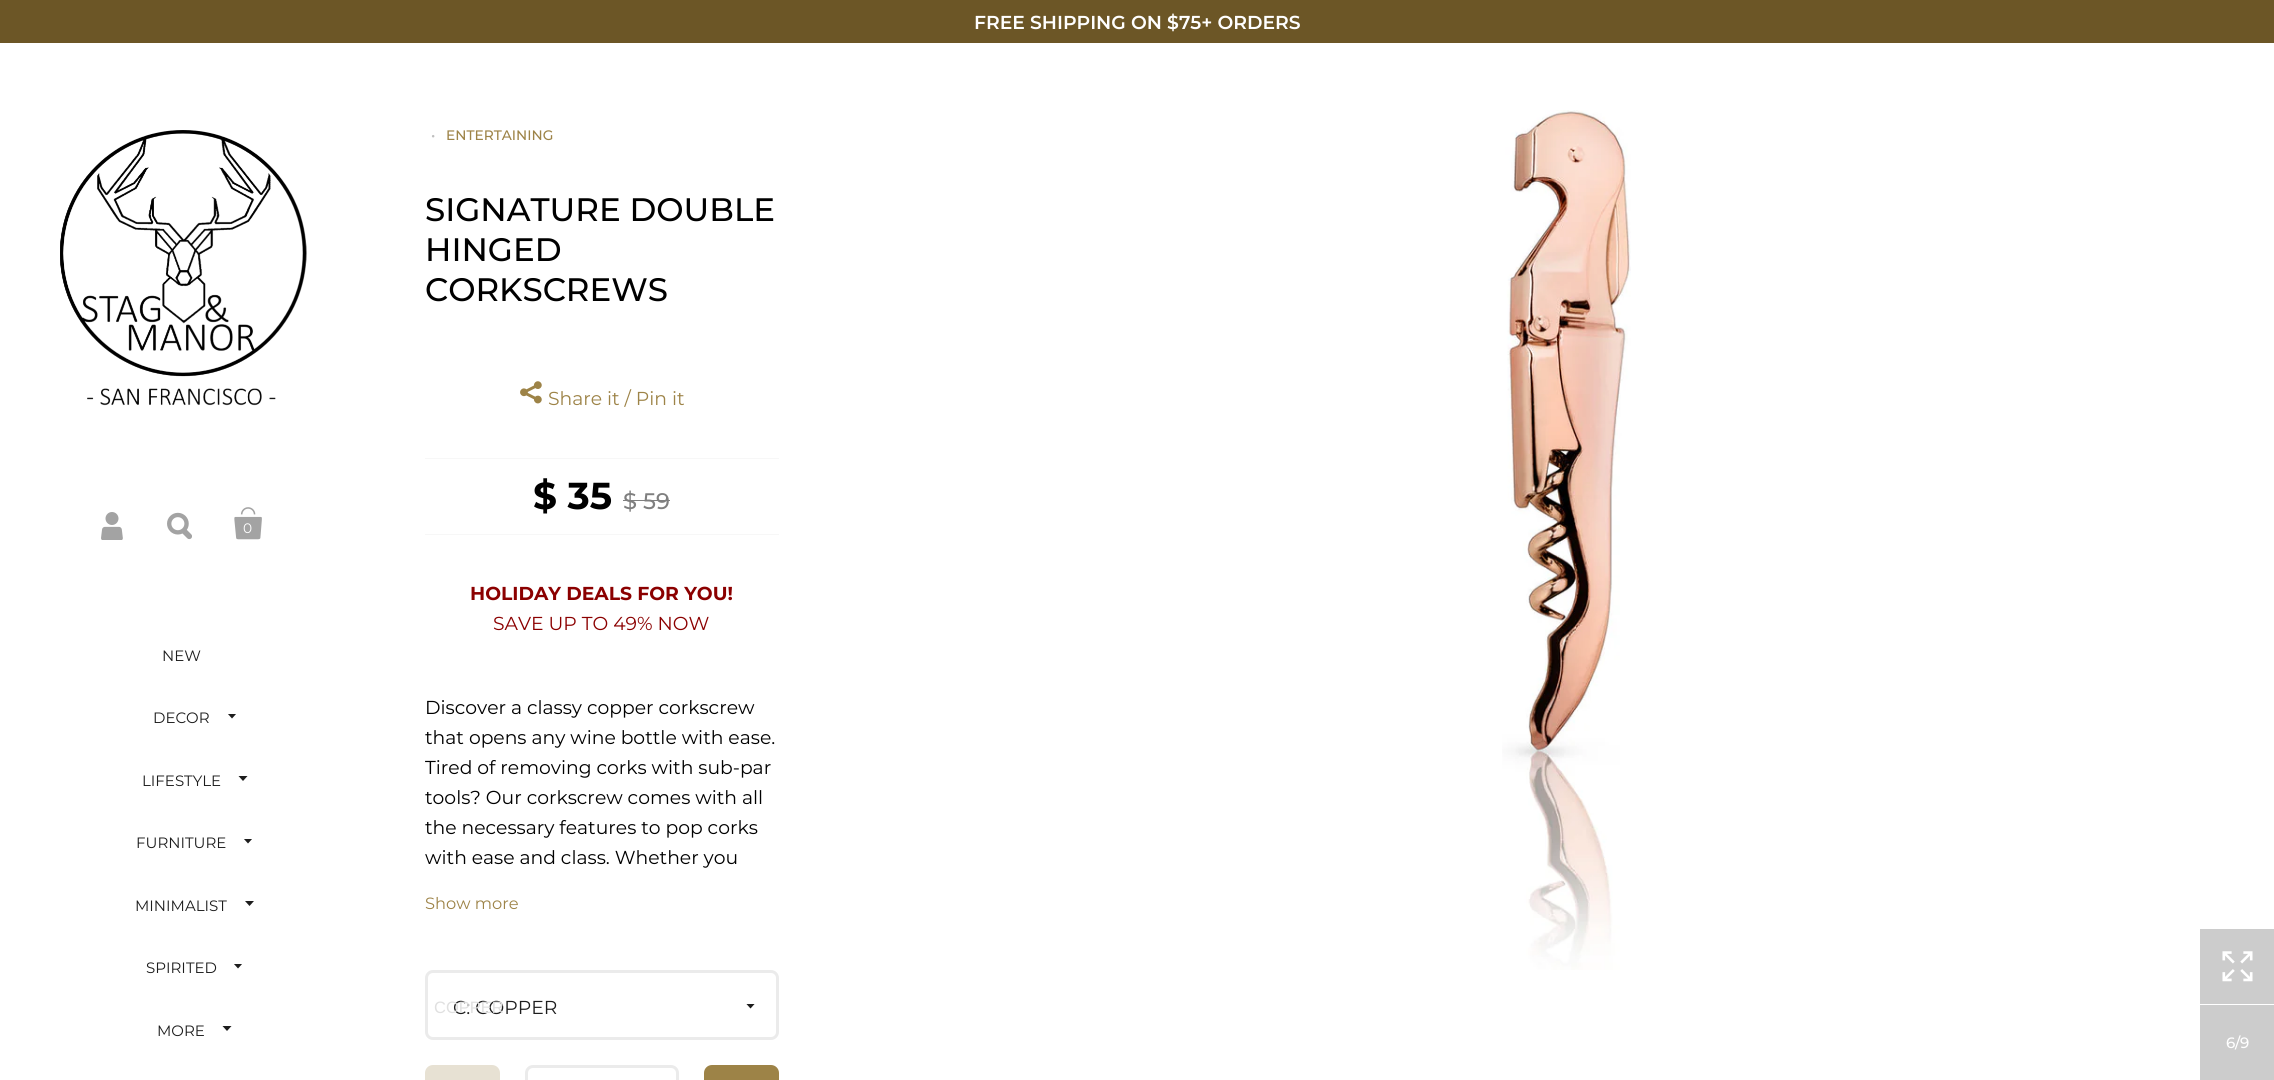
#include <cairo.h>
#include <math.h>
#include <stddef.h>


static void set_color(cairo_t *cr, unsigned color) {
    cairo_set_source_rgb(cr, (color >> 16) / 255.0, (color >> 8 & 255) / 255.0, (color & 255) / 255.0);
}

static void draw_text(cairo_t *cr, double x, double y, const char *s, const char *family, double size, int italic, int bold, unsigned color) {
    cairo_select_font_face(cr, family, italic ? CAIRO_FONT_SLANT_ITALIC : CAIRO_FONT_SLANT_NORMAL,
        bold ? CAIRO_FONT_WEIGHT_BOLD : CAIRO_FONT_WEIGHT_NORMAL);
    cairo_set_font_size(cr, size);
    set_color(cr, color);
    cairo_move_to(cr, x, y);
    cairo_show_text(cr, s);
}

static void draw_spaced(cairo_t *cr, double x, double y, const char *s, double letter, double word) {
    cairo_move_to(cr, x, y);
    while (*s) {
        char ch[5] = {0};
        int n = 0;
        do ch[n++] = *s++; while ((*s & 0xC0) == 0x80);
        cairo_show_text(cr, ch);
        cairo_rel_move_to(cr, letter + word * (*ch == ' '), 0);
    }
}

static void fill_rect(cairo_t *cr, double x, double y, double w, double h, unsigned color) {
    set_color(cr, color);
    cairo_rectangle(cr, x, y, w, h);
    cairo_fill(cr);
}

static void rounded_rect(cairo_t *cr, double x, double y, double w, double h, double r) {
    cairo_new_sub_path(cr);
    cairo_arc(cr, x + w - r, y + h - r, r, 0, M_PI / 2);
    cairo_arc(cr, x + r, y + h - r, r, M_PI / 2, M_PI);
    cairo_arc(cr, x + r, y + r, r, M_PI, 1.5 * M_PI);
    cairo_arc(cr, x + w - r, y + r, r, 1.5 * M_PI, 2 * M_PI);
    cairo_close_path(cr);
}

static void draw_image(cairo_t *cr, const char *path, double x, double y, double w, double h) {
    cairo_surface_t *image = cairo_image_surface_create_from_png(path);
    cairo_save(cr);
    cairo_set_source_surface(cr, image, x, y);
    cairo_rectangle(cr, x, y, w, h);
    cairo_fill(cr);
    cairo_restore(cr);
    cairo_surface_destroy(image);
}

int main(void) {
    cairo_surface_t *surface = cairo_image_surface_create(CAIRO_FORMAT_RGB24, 2274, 1080);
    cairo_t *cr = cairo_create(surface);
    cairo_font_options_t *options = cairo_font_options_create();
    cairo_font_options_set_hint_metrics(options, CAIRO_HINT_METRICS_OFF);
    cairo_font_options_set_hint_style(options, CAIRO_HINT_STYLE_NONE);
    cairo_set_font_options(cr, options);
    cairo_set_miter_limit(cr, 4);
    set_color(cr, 0xFFFFFF);
    cairo_paint(cr);
    fill_rect(cr, 0, 0, 2274, 43, 0x6C5626);
    draw_text(cr, 974, 29, "FREE SHIPPING ON $75+ ORDERS", "Montserrat SemiBold", 18.75, 0, 0, 0xFFFFFF);
    draw_image(cr, "assets/img1.png", 60, 130, 247, 276);
    draw_image(cr, "assets/img2.png", 101, 512, 22, 28);
    draw_image(cr, "assets/img3.png", 167, 512, 25, 28);
    draw_image(cr, "assets/img4.png", 234, 507, 28, 33);
    draw_text(cr, 243, 533, "0", "Montserrat", 13.75, 0, 0, 0xFFFFFF);
    draw_text(cr, 162, 661, "NEW", "Montserrat", 15, 0, 0, 0x1D1D1D);
    draw_text(cr, 153, 723, "DECOR", "Montserrat", 15, 0, 0, 0x1D1D1D);
    cairo_save(cr);
    cairo_rectangle(cr, 228, 714, 8, 5);
    cairo_clip(cr);
    cairo_new_path(cr);
    cairo_move_to(cr, 236.5, 713.5);
    cairo_line_to(cr, 232, 718.5);
    cairo_line_to(cr, 227.5, 713.5);
    cairo_close_path(cr);
    cairo_fill(cr);
    cairo_restore(cr);
    draw_text(cr, 142, 786, "LIFESTYLE", "Montserrat", 15, 0, 0, 0x1D1D1D);
    cairo_new_path(cr);
    cairo_move_to(cr, 247.5, 776);
    cairo_line_to(cr, 243, 781);
    cairo_line_to(cr, 238.5, 776);
    cairo_close_path(cr);
    cairo_fill(cr);
    draw_text(cr, 136, 848, "FURNITURE", "Montserrat", 15, 0, 0, 0x1D1D1D);
    cairo_save(cr);
    cairo_rectangle(cr, 244, 839, 9, 5);
    cairo_clip(cr);
    cairo_new_path(cr);
    cairo_move_to(cr, 252.5, 838.5);
    cairo_line_to(cr, 248, 843.5);
    cairo_line_to(cr, 243.5, 838.5);
    cairo_close_path(cr);
    cairo_fill(cr);
    cairo_restore(cr);
    draw_text(cr, 135, 911, "MINIMALIST", "Montserrat", 15, 0, 0, 0x1D1D1D);
    cairo_new_path(cr);
    cairo_move_to(cr, 254, 901);
    cairo_line_to(cr, 249.5, 906);
    cairo_line_to(cr, 245, 901);
    cairo_close_path(cr);
    cairo_fill(cr);
    draw_text(cr, 146, 973, "SPIRITED", "Montserrat", 15, 0, 0, 0x1D1D1D);
    cairo_save(cr);
    cairo_rectangle(cr, 234, 964, 9, 5);
    cairo_clip(cr);
    cairo_new_path(cr);
    cairo_move_to(cr, 242.5, 963.5);
    cairo_line_to(cr, 238, 968.5);
    cairo_line_to(cr, 233.5, 963.5);
    cairo_close_path(cr);
    cairo_fill(cr);
    cairo_restore(cr);
    draw_text(cr, 157, 1036, "MORE", "Montserrat", 15, 0, 0, 0x1D1D1D);
    cairo_new_path(cr);
    cairo_move_to(cr, 231.5, 1026);
    cairo_line_to(cr, 227, 1031);
    cairo_line_to(cr, 222.5, 1026);
    cairo_close_path(cr);
    cairo_fill(cr);
    draw_text(cr, 431, 140, "•", "Montserrat Medium", 13.75, 0, 0, 0xBFBFBF);
    draw_text(cr, 446, 140, "ENTERTAINING", "Montserrat Medium", 13.75, 0, 0, 0x9D8347);
    draw_text(cr, 425, 221, "SIGNATURE DOUBLE", "Montserrat Medium", 32.5, 0, 0, 0x000000);
    draw_text(cr, 425, 261, "HINGED", "Montserrat Medium", 32.5, 0, 0, 0x000000);
    draw_text(cr, 425, 301, "CORKSCREWS", "Montserrat Medium", 32.5, 0, 0, 0x000000);
    draw_image(cr, "assets/img5.png", 520, 381, 22, 23);
    draw_text(cr, 548, 405, "Share it / Pin it", "Montserrat", 18.75, 0, 0, 0x9D8347);
    fill_rect(cr, 425, 458, 354, 1, 0xF7F7F7);
    fill_rect(cr, 425, 534, 354, 1, 0xF7F7F7);
    draw_text(cr, 533, 509, "$ 35", "Montserrat", 37.5, 0, 1, 0x000000);
    draw_text(cr, 623, 509, "$ 59", "Montserrat Medium", 22.5, 0, 0, 0x7F7F7F);
    fill_rect(cr, 623, 500, 47, 1, 0x7F7F7F);
    draw_text(cr, 470, 600, "HOLIDAY DEALS FOR YOU!", "Montserrat", 18.75, 0, 1, 0x8B0000);
    draw_text(cr, 493, 630, "SAVE UP TO 49% NOW", "Montserrat", 18.75, 0, 0, 0x8B0000);
    draw_text(cr, 425, 714, "Discover a classy copper corkscrew", "Montserrat", 18.75, 0, 0, 0x000000);
    draw_text(cr, 425, 744, "that opens any wine bottle with ease.", "Montserrat", 18.75, 0, 0, 0x000000);
    draw_text(cr, 425, 774, "Tired of removing corks with sub-par", "Montserrat", 18.75, 0, 0, 0x000000);
    draw_text(cr, 425, 804, "tools? Our corkscrew comes with all", "Montserrat", 18.75, 0, 0, 0x000000);
    draw_text(cr, 425, 834, "the necessary features to pop corks", "Montserrat", 18.75, 0, 0, 0x000000);
    draw_text(cr, 425, 864, "with ease and class. Whether you", "Montserrat", 18.75, 0, 0, 0x000000);
    draw_text(cr, 425, 909, "Show more", "Montserrat", 16.25, 0, 0, 0x9D8347);
    rounded_rect(cr, 426.5, 971.5, 351, 67, 6.5);
    set_color(cr, 0xEBEBEB);
    cairo_set_line_width(cr, 3);
    cairo_stroke(cr);
    draw_text(cr, 453, 1014, "C: COPPER", "Montserrat", 18.75, 0, 0, 0x1D1D1D);
    draw_text(cr, 434, 1013, "COPPER", "Liberation Sans", 16.5, 0, 0, 0xE0E0E0);
    cairo_save(cr);
    cairo_rectangle(cr, 746, 1004, 9, 5);
    cairo_clip(cr);
    set_color(cr, 0x1D1D1D);
    cairo_new_path(cr);
    cairo_move_to(cr, 755, 1003.5);
    cairo_line_to(cr, 750.5, 1008.5);
    cairo_line_to(cr, 746, 1003.5);
    cairo_close_path(cr);
    cairo_fill(cr);
    cairo_restore(cr);
    set_color(cr, 0xE7E1D3);
    rounded_rect(cr, 425, 1065, 75, 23, 8);
    cairo_fill(cr);
    rounded_rect(cr, 526.5, 1066.5, 151, 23, 6.5);
    set_color(cr, 0xEBEBEB);
    cairo_stroke(cr);
    set_color(cr, 0x9D8347);
    rounded_rect(cr, 704, 1065, 75, 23, 8);
    cairo_fill(cr);
    fill_rect(cr, 2200, 929, 74, 75, 0xCCCCCC);
    draw_image(cr, "assets/img6.png", 2222, 951, 31, 31);
    draw_image(cr, "assets/img7.png", 1502, 110, 129, 860);
    fill_rect(cr, 2200, 1005, 74, 75, 0xCCCCCC);
    draw_text(cr, 2226, 1048, "6", "Montserrat Medium", 15, 0, 0, 0xFFFFFF);
    draw_spaced(cr, 2235, 1048, "/", -2, 0);
    draw_text(cr, 2240, 1048, "9", "Montserrat Medium", 15, 0, 0, 0xFFFFFF);
    cairo_surface_write_to_png(surface, "output.png");
    cairo_font_options_destroy(options);
    cairo_destroy(cr);
    cairo_surface_destroy(surface);
    return 0;
}
